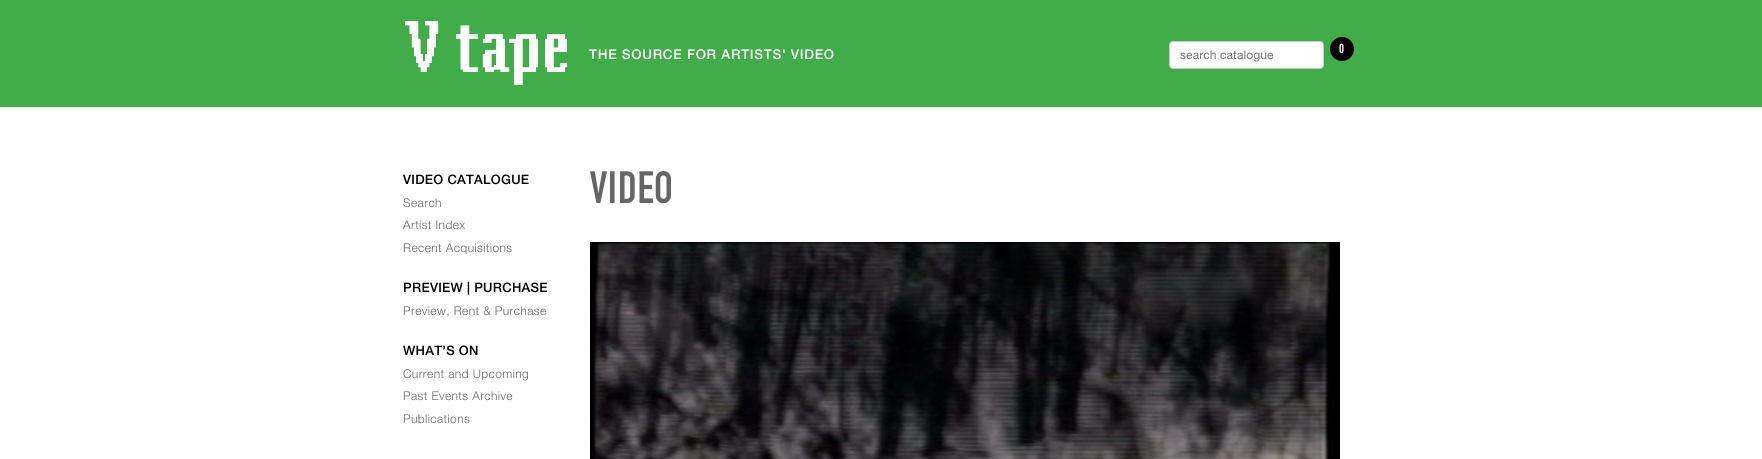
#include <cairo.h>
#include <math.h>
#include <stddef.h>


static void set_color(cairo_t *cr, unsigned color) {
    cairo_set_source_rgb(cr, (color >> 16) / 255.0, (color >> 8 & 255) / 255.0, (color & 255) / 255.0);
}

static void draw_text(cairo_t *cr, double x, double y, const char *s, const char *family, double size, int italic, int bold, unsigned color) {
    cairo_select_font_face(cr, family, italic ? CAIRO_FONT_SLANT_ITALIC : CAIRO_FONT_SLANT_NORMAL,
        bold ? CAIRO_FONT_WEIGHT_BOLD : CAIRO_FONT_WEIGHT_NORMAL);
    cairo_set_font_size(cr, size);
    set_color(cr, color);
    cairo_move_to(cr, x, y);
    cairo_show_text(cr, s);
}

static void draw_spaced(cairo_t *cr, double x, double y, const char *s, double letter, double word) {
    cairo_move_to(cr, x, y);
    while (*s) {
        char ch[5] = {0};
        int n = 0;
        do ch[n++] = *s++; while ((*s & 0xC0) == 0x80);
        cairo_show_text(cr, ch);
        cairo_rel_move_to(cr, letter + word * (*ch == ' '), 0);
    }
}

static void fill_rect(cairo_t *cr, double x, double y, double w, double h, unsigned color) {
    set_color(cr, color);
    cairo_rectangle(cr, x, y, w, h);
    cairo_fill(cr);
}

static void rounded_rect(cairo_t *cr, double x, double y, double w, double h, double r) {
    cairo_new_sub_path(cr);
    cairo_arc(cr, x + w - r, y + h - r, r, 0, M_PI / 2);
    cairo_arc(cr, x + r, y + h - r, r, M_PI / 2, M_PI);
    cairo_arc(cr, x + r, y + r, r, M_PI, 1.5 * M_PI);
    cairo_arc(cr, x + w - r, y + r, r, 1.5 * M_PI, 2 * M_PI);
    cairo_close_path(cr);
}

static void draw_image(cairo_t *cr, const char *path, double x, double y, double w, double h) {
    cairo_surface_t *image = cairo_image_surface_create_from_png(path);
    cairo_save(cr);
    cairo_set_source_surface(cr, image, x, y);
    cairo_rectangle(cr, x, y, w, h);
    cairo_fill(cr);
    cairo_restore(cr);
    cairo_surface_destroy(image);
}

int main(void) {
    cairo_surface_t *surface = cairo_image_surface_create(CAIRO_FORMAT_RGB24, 1762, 459);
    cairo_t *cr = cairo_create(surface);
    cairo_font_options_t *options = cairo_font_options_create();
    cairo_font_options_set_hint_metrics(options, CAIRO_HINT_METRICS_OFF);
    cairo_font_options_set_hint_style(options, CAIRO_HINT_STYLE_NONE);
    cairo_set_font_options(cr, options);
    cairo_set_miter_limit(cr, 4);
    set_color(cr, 0xFFFFFF);
    cairo_paint(cr);
    fill_rect(cr, 0, 0, 1762, 107, 0x41AD49);
    draw_image(cr, "assets/img1.png", 405, 21, 162, 64);
    cairo_select_font_face(cr, "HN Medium", CAIRO_FONT_SLANT_NORMAL, CAIRO_FONT_WEIGHT_NORMAL);
    cairo_set_font_size(cr, 13.5);
    set_color(cr, 0xFFFFFF);
    draw_spaced(cr, 589, 59, "THE SOURCE FOR ARTISTS' VIDEO", 0.7, 0);
    set_color(cr, 0x000000);
    cairo_new_path(cr);
    cairo_arc(cr, 1342, 49, 12, 0, 2 * M_PI);
    cairo_fill(cr);
    draw_text(cr, 1339, 53, "0", "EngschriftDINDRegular", 13, 0, 0, 0xFFFFFF);
    rounded_rect(cr, 1169.5, 41.5, 154, 27, 3.5);
    cairo_fill_preserve(cr);
    set_color(cr, 0xCCCCCC);
    cairo_set_line_width(cr, 1);
    cairo_stroke(cr);
    cairo_select_font_face(cr, "HN", CAIRO_FONT_SLANT_NORMAL, CAIRO_FONT_WEIGHT_NORMAL);
    cairo_set_font_size(cr, 12);
    set_color(cr, 0x757575);
    draw_spaced(cr, 1180, 59, "search catalogue", 0.1, 0);
    cairo_select_font_face(cr, "HN Medium", CAIRO_FONT_SLANT_NORMAL, CAIRO_FONT_WEIGHT_NORMAL);
    cairo_set_font_size(cr, 13);
    set_color(cr, 0x000000);
    draw_spaced(cr, 403, 184, "VIDEO CATALOGUE", 0.3, 0);
    cairo_select_font_face(cr, "HN Light", CAIRO_FONT_SLANT_NORMAL, CAIRO_FONT_WEIGHT_NORMAL);
    cairo_set_font_size(cr, 12);
    set_color(cr, 0x666666);
    draw_spaced(cr, 403, 207, "Search", 0.4, 0);
    draw_spaced(cr, 403, 229, "Artist Index", 0.4, 0);
    draw_spaced(cr, 403, 252, "Recent Acquisitions", 0.4, 0);
    cairo_select_font_face(cr, "HN Medium", CAIRO_FONT_SLANT_NORMAL, CAIRO_FONT_WEIGHT_NORMAL);
    cairo_set_font_size(cr, 13);
    set_color(cr, 0x000000);
    draw_spaced(cr, 403, 292, "PREVIEW | PURCHASE", 0.3, 0);
    cairo_select_font_face(cr, "HN Light", CAIRO_FONT_SLANT_NORMAL, CAIRO_FONT_WEIGHT_NORMAL);
    cairo_set_font_size(cr, 12);
    set_color(cr, 0x666666);
    draw_spaced(cr, 403, 315, "Preview, Rent & Purchase", 0.4, 0);
    cairo_select_font_face(cr, "HN Medium", CAIRO_FONT_SLANT_NORMAL, CAIRO_FONT_WEIGHT_NORMAL);
    cairo_set_font_size(cr, 13);
    set_color(cr, 0x000000);
    draw_spaced(cr, 403, 355, "WHAT’S ON", 0.3, 0);
    cairo_select_font_face(cr, "HN Light", CAIRO_FONT_SLANT_NORMAL, CAIRO_FONT_WEIGHT_NORMAL);
    cairo_set_font_size(cr, 12);
    set_color(cr, 0x666666);
    draw_spaced(cr, 403, 378, "Current and Upcoming", 0.4, 0);
    draw_spaced(cr, 403, 400, "Past Events Archive", 0.4, 0);
    draw_spaced(cr, 403, 423, "Publications", 0.4, 0);
    cairo_select_font_face(cr, "EngschriftDINDRegular", CAIRO_FONT_SLANT_NORMAL, CAIRO_FONT_WEIGHT_NORMAL);
    cairo_set_font_size(cr, 44);
    draw_spaced(cr, 590, 203, "VIDEO", 0.5, 0);
    draw_image(cr, "assets/img2.png", 590, 242, 750, 217);
    cairo_surface_write_to_png(surface, "output.png");
    cairo_font_options_destroy(options);
    cairo_destroy(cr);
    cairo_surface_destroy(surface);
    return 0;
}
